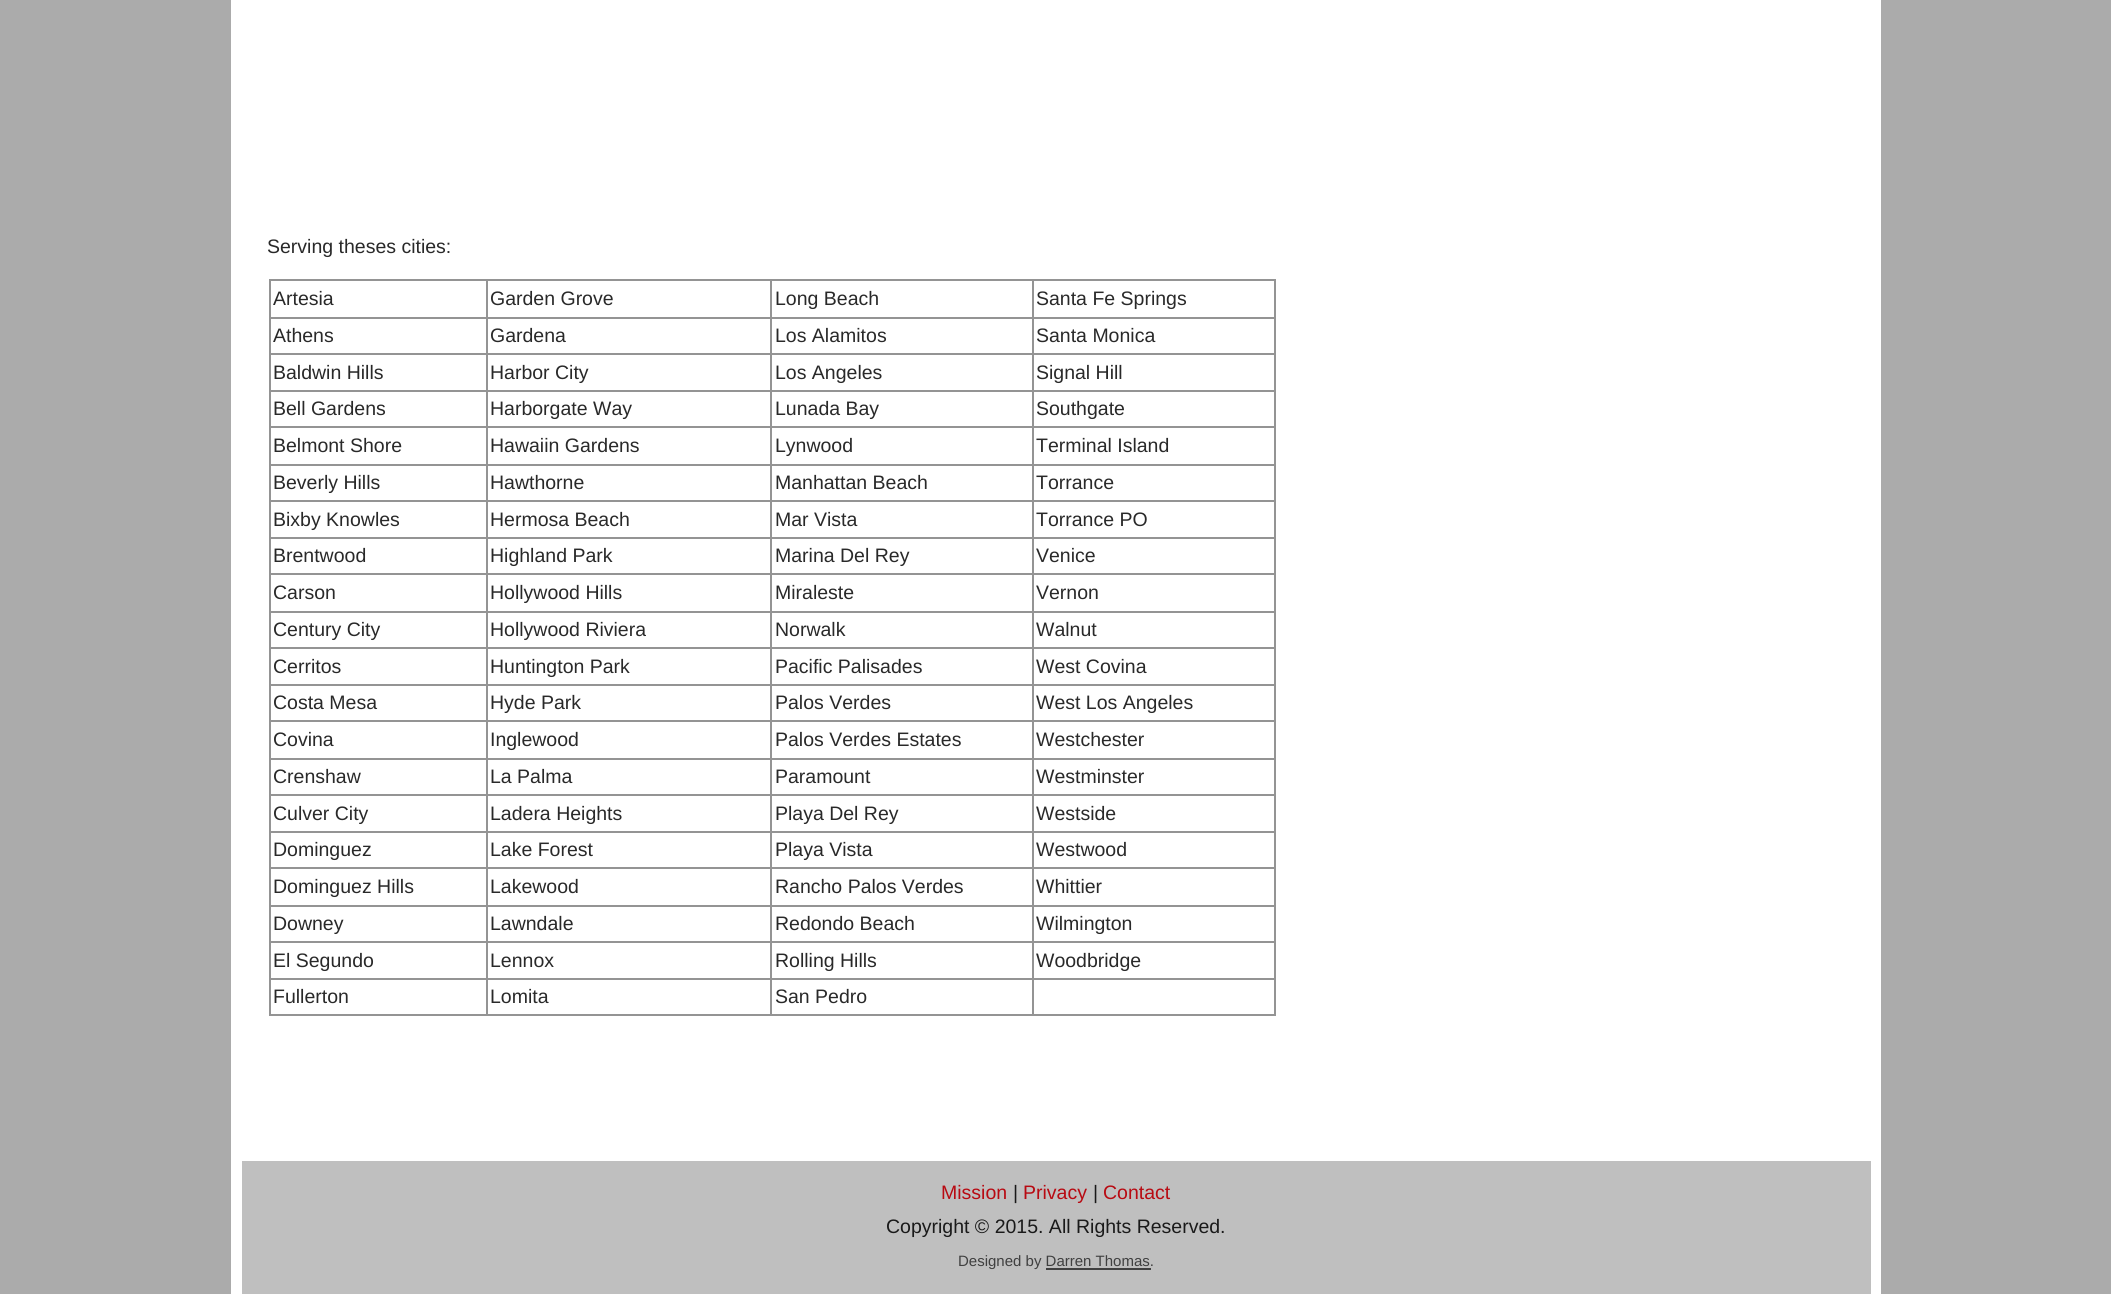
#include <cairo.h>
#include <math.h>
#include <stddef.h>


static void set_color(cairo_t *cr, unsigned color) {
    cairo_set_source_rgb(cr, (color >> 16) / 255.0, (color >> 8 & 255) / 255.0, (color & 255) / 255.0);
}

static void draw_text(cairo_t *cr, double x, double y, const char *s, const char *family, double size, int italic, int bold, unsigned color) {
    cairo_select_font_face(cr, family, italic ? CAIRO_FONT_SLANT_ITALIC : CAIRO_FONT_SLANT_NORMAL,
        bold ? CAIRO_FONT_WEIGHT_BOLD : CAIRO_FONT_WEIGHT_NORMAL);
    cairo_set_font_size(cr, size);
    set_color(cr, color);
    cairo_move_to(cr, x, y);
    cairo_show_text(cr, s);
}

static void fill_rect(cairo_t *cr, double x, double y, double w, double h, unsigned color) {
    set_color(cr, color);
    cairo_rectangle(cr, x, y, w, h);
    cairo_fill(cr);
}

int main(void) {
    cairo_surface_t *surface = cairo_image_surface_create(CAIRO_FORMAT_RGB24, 2111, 1294);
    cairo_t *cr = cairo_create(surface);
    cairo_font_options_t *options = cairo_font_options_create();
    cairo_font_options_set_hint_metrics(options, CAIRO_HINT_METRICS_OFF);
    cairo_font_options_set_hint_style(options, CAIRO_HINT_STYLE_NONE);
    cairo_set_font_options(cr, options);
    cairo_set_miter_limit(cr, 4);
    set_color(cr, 0xABABAB);
    cairo_paint(cr);
    fill_rect(cr, 231, 0, 1650, 1294, 0xFFFFFF);
    draw_text(cr, 267, 253, "Serving theses cities:", "Liberation Sans", 19.5, 0, 0, 0x292929);
    fill_rect(cr, 1032, 279, 243, 2, 0x949494);
    fill_rect(cr, 1032, 317, 243, 2, 0x949494);
    fill_rect(cr, 1032, 353, 243, 2, 0x949494);
    fill_rect(cr, 1032, 390, 243, 2, 0x949494);
    fill_rect(cr, 1032, 426, 243, 2, 0x949494);
    fill_rect(cr, 1032, 464, 243, 2, 0x949494);
    fill_rect(cr, 1032, 500, 243, 2, 0x949494);
    fill_rect(cr, 1032, 537, 243, 2, 0x949494);
    fill_rect(cr, 1032, 573, 243, 2, 0x949494);
    fill_rect(cr, 1032, 611, 243, 2, 0x949494);
    fill_rect(cr, 1032, 647, 243, 2, 0x949494);
    fill_rect(cr, 1032, 684, 243, 2, 0x949494);
    fill_rect(cr, 1032, 720, 243, 2, 0x949494);
    fill_rect(cr, 1032, 758, 243, 2, 0x949494);
    fill_rect(cr, 1032, 794, 243, 2, 0x949494);
    fill_rect(cr, 1032, 831, 243, 2, 0x949494);
    fill_rect(cr, 1032, 867, 243, 2, 0x949494);
    fill_rect(cr, 1032, 905, 243, 2, 0x949494);
    fill_rect(cr, 1032, 941, 243, 2, 0x949494);
    fill_rect(cr, 1032, 978, 243, 2, 0x949494);
    fill_rect(cr, 1274, 978, 2, 38, 0x949494);
    fill_rect(cr, 1032, 1014, 243, 2, 0x949494);
    fill_rect(cr, 1032, 978, 2, 38, 0x949494);
    fill_rect(cr, 770, 978, 264, 2, 0x949494);
    fill_rect(cr, 1032, 941, 2, 39, 0x949494);
    fill_rect(cr, 770, 941, 264, 2, 0x949494);
    fill_rect(cr, 1032, 905, 2, 37, 0x949494);
    fill_rect(cr, 770, 905, 264, 2, 0x949494);
    fill_rect(cr, 1032, 867, 2, 39, 0x949494);
    fill_rect(cr, 770, 867, 264, 2, 0x949494);
    fill_rect(cr, 1032, 831, 2, 38, 0x949494);
    fill_rect(cr, 770, 831, 264, 2, 0x949494);
    fill_rect(cr, 1032, 794, 2, 39, 0x949494);
    fill_rect(cr, 770, 794, 264, 2, 0x949494);
    fill_rect(cr, 1032, 758, 2, 37, 0x949494);
    fill_rect(cr, 770, 758, 264, 2, 0x949494);
    fill_rect(cr, 1032, 720, 2, 39, 0x949494);
    fill_rect(cr, 770, 720, 264, 2, 0x949494);
    fill_rect(cr, 1032, 684, 2, 38, 0x949494);
    fill_rect(cr, 770, 684, 264, 2, 0x949494);
    fill_rect(cr, 1032, 647, 2, 39, 0x949494);
    fill_rect(cr, 770, 647, 264, 2, 0x949494);
    fill_rect(cr, 1032, 611, 2, 37, 0x949494);
    fill_rect(cr, 770, 611, 264, 2, 0x949494);
    fill_rect(cr, 1032, 573, 2, 39, 0x949494);
    fill_rect(cr, 770, 573, 264, 2, 0x949494);
    fill_rect(cr, 1032, 537, 2, 38, 0x949494);
    fill_rect(cr, 770, 537, 264, 2, 0x949494);
    fill_rect(cr, 1032, 500, 2, 39, 0x949494);
    fill_rect(cr, 770, 500, 264, 2, 0x949494);
    fill_rect(cr, 1032, 464, 2, 37, 0x949494);
    fill_rect(cr, 770, 464, 264, 2, 0x949494);
    fill_rect(cr, 1032, 426, 2, 39, 0x949494);
    fill_rect(cr, 770, 426, 264, 2, 0x949494);
    fill_rect(cr, 1032, 390, 2, 38, 0x949494);
    fill_rect(cr, 770, 390, 264, 2, 0x949494);
    fill_rect(cr, 1032, 353, 2, 39, 0x949494);
    fill_rect(cr, 770, 353, 264, 2, 0x949494);
    fill_rect(cr, 1032, 317, 2, 37, 0x949494);
    fill_rect(cr, 770, 317, 264, 2, 0x949494);
    fill_rect(cr, 1032, 279, 2, 39, 0x949494);
    fill_rect(cr, 770, 279, 264, 2, 0x949494);
    fill_rect(cr, 770, 1014, 264, 2, 0x949494);
    fill_rect(cr, 770, 978, 2, 38, 0x949494);
    fill_rect(cr, 486, 978, 285, 2, 0x949494);
    fill_rect(cr, 770, 941, 2, 39, 0x949494);
    fill_rect(cr, 486, 941, 285, 2, 0x949494);
    fill_rect(cr, 770, 905, 2, 37, 0x949494);
    fill_rect(cr, 486, 905, 285, 2, 0x949494);
    fill_rect(cr, 770, 867, 2, 39, 0x949494);
    fill_rect(cr, 486, 867, 285, 2, 0x949494);
    fill_rect(cr, 770, 831, 2, 38, 0x949494);
    fill_rect(cr, 486, 831, 285, 2, 0x949494);
    fill_rect(cr, 770, 794, 2, 39, 0x949494);
    fill_rect(cr, 486, 794, 285, 2, 0x949494);
    fill_rect(cr, 770, 758, 2, 37, 0x949494);
    fill_rect(cr, 486, 758, 285, 2, 0x949494);
    fill_rect(cr, 770, 720, 2, 39, 0x949494);
    fill_rect(cr, 486, 720, 285, 2, 0x949494);
    fill_rect(cr, 770, 684, 2, 38, 0x949494);
    fill_rect(cr, 486, 684, 285, 2, 0x949494);
    fill_rect(cr, 770, 647, 2, 39, 0x949494);
    fill_rect(cr, 486, 647, 285, 2, 0x949494);
    fill_rect(cr, 770, 611, 2, 37, 0x949494);
    fill_rect(cr, 486, 611, 285, 2, 0x949494);
    fill_rect(cr, 770, 573, 2, 39, 0x949494);
    fill_rect(cr, 486, 573, 285, 2, 0x949494);
    fill_rect(cr, 770, 537, 2, 38, 0x949494);
    fill_rect(cr, 486, 537, 285, 2, 0x949494);
    fill_rect(cr, 770, 500, 2, 39, 0x949494);
    fill_rect(cr, 486, 500, 285, 2, 0x949494);
    fill_rect(cr, 770, 464, 2, 37, 0x949494);
    fill_rect(cr, 486, 464, 285, 2, 0x949494);
    fill_rect(cr, 770, 426, 2, 39, 0x949494);
    fill_rect(cr, 486, 426, 285, 2, 0x949494);
    fill_rect(cr, 770, 390, 2, 38, 0x949494);
    fill_rect(cr, 486, 390, 285, 2, 0x949494);
    fill_rect(cr, 770, 353, 2, 39, 0x949494);
    fill_rect(cr, 486, 353, 285, 2, 0x949494);
    fill_rect(cr, 770, 317, 2, 37, 0x949494);
    fill_rect(cr, 486, 317, 285, 2, 0x949494);
    fill_rect(cr, 770, 279, 2, 39, 0x949494);
    fill_rect(cr, 486, 279, 285, 2, 0x949494);
    fill_rect(cr, 486, 1014, 285, 2, 0x949494);
    fill_rect(cr, 486, 978, 2, 38, 0x949494);
    fill_rect(cr, 269, 978, 219, 2, 0x949494);
    fill_rect(cr, 486, 941, 2, 39, 0x949494);
    fill_rect(cr, 269, 941, 219, 2, 0x949494);
    fill_rect(cr, 486, 905, 2, 37, 0x949494);
    fill_rect(cr, 269, 905, 219, 2, 0x949494);
    fill_rect(cr, 486, 867, 2, 39, 0x949494);
    fill_rect(cr, 269, 867, 219, 2, 0x949494);
    fill_rect(cr, 486, 831, 2, 38, 0x949494);
    fill_rect(cr, 269, 831, 219, 2, 0x949494);
    fill_rect(cr, 486, 794, 2, 39, 0x949494);
    fill_rect(cr, 269, 794, 219, 2, 0x949494);
    fill_rect(cr, 486, 758, 2, 37, 0x949494);
    fill_rect(cr, 269, 758, 219, 2, 0x949494);
    fill_rect(cr, 486, 720, 2, 39, 0x949494);
    fill_rect(cr, 269, 720, 219, 2, 0x949494);
    fill_rect(cr, 486, 684, 2, 38, 0x949494);
    fill_rect(cr, 269, 684, 219, 2, 0x949494);
    fill_rect(cr, 486, 647, 2, 39, 0x949494);
    fill_rect(cr, 269, 647, 219, 2, 0x949494);
    fill_rect(cr, 486, 611, 2, 37, 0x949494);
    fill_rect(cr, 269, 611, 219, 2, 0x949494);
    fill_rect(cr, 486, 573, 2, 39, 0x949494);
    fill_rect(cr, 269, 573, 219, 2, 0x949494);
    fill_rect(cr, 486, 537, 2, 38, 0x949494);
    fill_rect(cr, 269, 537, 219, 2, 0x949494);
    fill_rect(cr, 486, 500, 2, 39, 0x949494);
    fill_rect(cr, 269, 500, 219, 2, 0x949494);
    fill_rect(cr, 486, 464, 2, 37, 0x949494);
    fill_rect(cr, 269, 464, 219, 2, 0x949494);
    fill_rect(cr, 486, 426, 2, 39, 0x949494);
    fill_rect(cr, 269, 426, 219, 2, 0x949494);
    fill_rect(cr, 486, 390, 2, 38, 0x949494);
    fill_rect(cr, 269, 390, 219, 2, 0x949494);
    fill_rect(cr, 486, 353, 2, 39, 0x949494);
    fill_rect(cr, 269, 353, 219, 2, 0x949494);
    fill_rect(cr, 486, 317, 2, 37, 0x949494);
    fill_rect(cr, 269, 317, 219, 2, 0x949494);
    fill_rect(cr, 486, 279, 2, 39, 0x949494);
    fill_rect(cr, 269, 279, 219, 2, 0x949494);
    fill_rect(cr, 269, 1014, 219, 2, 0x949494);
    fill_rect(cr, 269, 978, 2, 38, 0x949494);
    fill_rect(cr, 269, 941, 2, 39, 0x949494);
    fill_rect(cr, 269, 905, 2, 37, 0x949494);
    fill_rect(cr, 269, 867, 2, 39, 0x949494);
    fill_rect(cr, 269, 831, 2, 38, 0x949494);
    fill_rect(cr, 269, 794, 2, 39, 0x949494);
    fill_rect(cr, 269, 758, 2, 37, 0x949494);
    fill_rect(cr, 269, 720, 2, 39, 0x949494);
    fill_rect(cr, 269, 684, 2, 38, 0x949494);
    fill_rect(cr, 269, 647, 2, 39, 0x949494);
    fill_rect(cr, 269, 611, 2, 37, 0x949494);
    fill_rect(cr, 269, 573, 2, 39, 0x949494);
    fill_rect(cr, 269, 537, 2, 38, 0x949494);
    fill_rect(cr, 269, 500, 2, 39, 0x949494);
    fill_rect(cr, 269, 464, 2, 37, 0x949494);
    fill_rect(cr, 269, 426, 2, 39, 0x949494);
    fill_rect(cr, 269, 390, 2, 38, 0x949494);
    fill_rect(cr, 269, 353, 2, 39, 0x949494);
    fill_rect(cr, 269, 317, 2, 37, 0x949494);
    fill_rect(cr, 269, 279, 2, 39, 0x949494);
    draw_text(cr, 273, 305, "Artesia", "Liberation Sans", 19.5, 0, 0, 0x292929);
    draw_text(cr, 490, 305, "Garden Grove", "Liberation Sans", 19.5, 0, 0, 0x292929);
    draw_text(cr, 775, 305, "Long Beach", "Liberation Sans", 19.5, 0, 0, 0x292929);
    fill_rect(cr, 1274, 941, 2, 39, 0x949494);
    fill_rect(cr, 1274, 905, 2, 37, 0x949494);
    fill_rect(cr, 1274, 867, 2, 39, 0x949494);
    fill_rect(cr, 1274, 831, 2, 38, 0x949494);
    fill_rect(cr, 1274, 794, 2, 39, 0x949494);
    fill_rect(cr, 1274, 758, 2, 37, 0x949494);
    fill_rect(cr, 1274, 720, 2, 39, 0x949494);
    fill_rect(cr, 1274, 684, 2, 38, 0x949494);
    fill_rect(cr, 1274, 647, 2, 39, 0x949494);
    fill_rect(cr, 1274, 611, 2, 37, 0x949494);
    fill_rect(cr, 1274, 573, 2, 39, 0x949494);
    fill_rect(cr, 1274, 537, 2, 38, 0x949494);
    fill_rect(cr, 1274, 500, 2, 39, 0x949494);
    fill_rect(cr, 1274, 464, 2, 37, 0x949494);
    fill_rect(cr, 1274, 426, 2, 39, 0x949494);
    fill_rect(cr, 1274, 390, 2, 38, 0x949494);
    fill_rect(cr, 1274, 353, 2, 39, 0x949494);
    fill_rect(cr, 1274, 317, 2, 37, 0x949494);
    fill_rect(cr, 1274, 279, 2, 39, 0x949494);
    draw_text(cr, 1036, 305, "Santa Fe Springs", "Liberation Sans", 19.5, 0, 0, 0x292929);
    draw_text(cr, 273, 342, "Athens", "Liberation Sans", 19.5, 0, 0, 0x292929);
    draw_text(cr, 490, 342, "Gardena", "Liberation Sans", 19.5, 0, 0, 0x292929);
    draw_text(cr, 775, 342, "Los Alamitos", "Liberation Sans", 19.5, 0, 0, 0x292929);
    draw_text(cr, 1036, 342, "Santa Monica", "Liberation Sans", 19.5, 0, 0, 0x292929);
    draw_text(cr, 273, 379, "Baldwin Hills", "Liberation Sans", 19.5, 0, 0, 0x292929);
    draw_text(cr, 490, 379, "Harbor City", "Liberation Sans", 19.5, 0, 0, 0x292929);
    draw_text(cr, 775, 379, "Los Angeles", "Liberation Sans", 19.5, 0, 0, 0x292929);
    draw_text(cr, 1036, 379, "Signal Hill", "Liberation Sans", 19.5, 0, 0, 0x292929);
    draw_text(cr, 273, 415, "Bell Gardens", "Liberation Sans", 19.5, 0, 0, 0x292929);
    draw_text(cr, 490, 415, "Harborgate Way", "Liberation Sans", 19.5, 0, 0, 0x292929);
    draw_text(cr, 775, 415, "Lunada Bay", "Liberation Sans", 19.5, 0, 0, 0x292929);
    draw_text(cr, 1036, 415, "Southgate", "Liberation Sans", 19.5, 0, 0, 0x292929);
    draw_text(cr, 273, 452, "Belmont Shore", "Liberation Sans", 19.5, 0, 0, 0x292929);
    draw_text(cr, 490, 452, "Hawaiin Gardens", "Liberation Sans", 19.5, 0, 0, 0x292929);
    draw_text(cr, 775, 452, "Lynwood", "Liberation Sans", 19.5, 0, 0, 0x292929);
    draw_text(cr, 1036, 452, "Terminal Island", "Liberation Sans", 19.5, 0, 0, 0x292929);
    draw_text(cr, 273, 489, "Beverly Hills", "Liberation Sans", 19.5, 0, 0, 0x292929);
    draw_text(cr, 490, 489, "Hawthorne", "Liberation Sans", 19.5, 0, 0, 0x292929);
    draw_text(cr, 775, 489, "Manhattan Beach", "Liberation Sans", 19.5, 0, 0, 0x292929);
    draw_text(cr, 1036, 489, "Torrance", "Liberation Sans", 19.5, 0, 0, 0x292929);
    draw_text(cr, 273, 526, "Bixby Knowles", "Liberation Sans", 19.5, 0, 0, 0x292929);
    draw_text(cr, 490, 526, "Hermosa Beach", "Liberation Sans", 19.5, 0, 0, 0x292929);
    draw_text(cr, 775, 526, "Mar Vista", "Liberation Sans", 19.5, 0, 0, 0x292929);
    draw_text(cr, 1036, 526, "Torrance PO", "Liberation Sans", 19.5, 0, 0, 0x292929);
    draw_text(cr, 273, 562, "Brentwood", "Liberation Sans", 19.5, 0, 0, 0x292929);
    draw_text(cr, 490, 562, "Highland Park", "Liberation Sans", 19.5, 0, 0, 0x292929);
    draw_text(cr, 775, 562, "Marina Del Rey", "Liberation Sans", 19.5, 0, 0, 0x292929);
    draw_text(cr, 1036, 562, "Venice", "Liberation Sans", 19.5, 0, 0, 0x292929);
    draw_text(cr, 273, 599, "Carson", "Liberation Sans", 19.5, 0, 0, 0x292929);
    draw_text(cr, 490, 599, "Hollywood Hills", "Liberation Sans", 19.5, 0, 0, 0x292929);
    draw_text(cr, 775, 599, "Miraleste", "Liberation Sans", 19.5, 0, 0, 0x292929);
    draw_text(cr, 1036, 599, "Vernon", "Liberation Sans", 19.5, 0, 0, 0x292929);
    draw_text(cr, 273, 636, "Century City", "Liberation Sans", 19.5, 0, 0, 0x292929);
    draw_text(cr, 490, 636, "Hollywood Riviera", "Liberation Sans", 19.5, 0, 0, 0x292929);
    draw_text(cr, 775, 636, "Norwalk", "Liberation Sans", 19.5, 0, 0, 0x292929);
    draw_text(cr, 1036, 636, "Walnut", "Liberation Sans", 19.5, 0, 0, 0x292929);
    draw_text(cr, 273, 673, "Cerritos", "Liberation Sans", 19.5, 0, 0, 0x292929);
    draw_text(cr, 490, 673, "Huntington Park", "Liberation Sans", 19.5, 0, 0, 0x292929);
    draw_text(cr, 775, 673, "Pacific Palisades", "Liberation Sans", 19.5, 0, 0, 0x292929);
    draw_text(cr, 1036, 673, "West Covina", "Liberation Sans", 19.5, 0, 0, 0x292929);
    draw_text(cr, 273, 709, "Costa Mesa", "Liberation Sans", 19.5, 0, 0, 0x292929);
    draw_text(cr, 490, 709, "Hyde Park", "Liberation Sans", 19.5, 0, 0, 0x292929);
    draw_text(cr, 775, 709, "Palos Verdes", "Liberation Sans", 19.5, 0, 0, 0x292929);
    draw_text(cr, 1036, 709, "West Los Angeles", "Liberation Sans", 19.5, 0, 0, 0x292929);
    draw_text(cr, 273, 746, "Covina", "Liberation Sans", 19.5, 0, 0, 0x292929);
    draw_text(cr, 490, 746, "Inglewood", "Liberation Sans", 19.5, 0, 0, 0x292929);
    draw_text(cr, 775, 746, "Palos Verdes Estates", "Liberation Sans", 19.5, 0, 0, 0x292929);
    draw_text(cr, 1036, 746, "Westchester", "Liberation Sans", 19.5, 0, 0, 0x292929);
    draw_text(cr, 273, 783, "Crenshaw", "Liberation Sans", 19.5, 0, 0, 0x292929);
    draw_text(cr, 490, 783, "La Palma", "Liberation Sans", 19.5, 0, 0, 0x292929);
    draw_text(cr, 775, 783, "Paramount", "Liberation Sans", 19.5, 0, 0, 0x292929);
    draw_text(cr, 1036, 783, "Westminster", "Liberation Sans", 19.5, 0, 0, 0x292929);
    draw_text(cr, 273, 820, "Culver City", "Liberation Sans", 19.5, 0, 0, 0x292929);
    draw_text(cr, 490, 820, "Ladera Heights", "Liberation Sans", 19.5, 0, 0, 0x292929);
    draw_text(cr, 775, 820, "Playa Del Rey", "Liberation Sans", 19.5, 0, 0, 0x292929);
    draw_text(cr, 1036, 820, "Westside", "Liberation Sans", 19.5, 0, 0, 0x292929);
    draw_text(cr, 273, 856, "Dominguez", "Liberation Sans", 19.5, 0, 0, 0x292929);
    draw_text(cr, 490, 856, "Lake Forest", "Liberation Sans", 19.5, 0, 0, 0x292929);
    draw_text(cr, 775, 856, "Playa Vista", "Liberation Sans", 19.5, 0, 0, 0x292929);
    draw_text(cr, 1036, 856, "Westwood", "Liberation Sans", 19.5, 0, 0, 0x292929);
    draw_text(cr, 273, 893, "Dominguez Hills", "Liberation Sans", 19.5, 0, 0, 0x292929);
    draw_text(cr, 490, 893, "Lakewood", "Liberation Sans", 19.5, 0, 0, 0x292929);
    draw_text(cr, 775, 893, "Rancho Palos Verdes", "Liberation Sans", 19.5, 0, 0, 0x292929);
    draw_text(cr, 1036, 893, "Whittier", "Liberation Sans", 19.5, 0, 0, 0x292929);
    draw_text(cr, 273, 930, "Downey", "Liberation Sans", 19.5, 0, 0, 0x292929);
    draw_text(cr, 490, 930, "Lawndale", "Liberation Sans", 19.5, 0, 0, 0x292929);
    draw_text(cr, 775, 930, "Redondo Beach", "Liberation Sans", 19.5, 0, 0, 0x292929);
    draw_text(cr, 1036, 930, "Wilmington", "Liberation Sans", 19.5, 0, 0, 0x292929);
    draw_text(cr, 273, 967, "El Segundo", "Liberation Sans", 19.5, 0, 0, 0x292929);
    draw_text(cr, 490, 967, "Lennox", "Liberation Sans", 19.5, 0, 0, 0x292929);
    draw_text(cr, 775, 967, "Rolling Hills", "Liberation Sans", 19.5, 0, 0, 0x292929);
    draw_text(cr, 1036, 967, "Woodbridge", "Liberation Sans", 19.5, 0, 0, 0x292929);
    draw_text(cr, 273, 1003, "Fullerton", "Liberation Sans", 19.5, 0, 0, 0x292929);
    draw_text(cr, 490, 1003, "Lomita", "Liberation Sans", 19.5, 0, 0, 0x292929);
    draw_text(cr, 775, 1003, "San Pedro", "Liberation Sans", 19.5, 0, 0, 0x292929);
    fill_rect(cr, 242, 1161, 1629, 133, 0xBFBFBF);
    draw_text(cr, 941, 1199, "Mission", "Liberation Sans", 19.5, 0, 0, 0xB80A12);
    draw_text(cr, 1013, 1199, "|", "Liberation Sans", 19.5, 0, 0, 0x1A1A1A);
    draw_text(cr, 1023, 1199, "Privacy", "Liberation Sans", 19.5, 0, 0, 0xB80A12);
    draw_text(cr, 1093, 1199, "|", "Liberation Sans", 19.5, 0, 0, 0x1A1A1A);
    draw_text(cr, 1103, 1199, "Contact", "Liberation Sans", 19.5, 0, 0, 0xB80A12);
    draw_text(cr, 886, 1233, "Copyright © 2015. All Rights Reserved.", "Liberation Sans", 19.5, 0, 0, 0x1A1A1A);
    draw_text(cr, 958, 1266, "Designed by Darren Thomas.", "Liberation Sans", 15, 0, 0, 0x404040);
    fill_rect(cr, 1046, 1268, 105, 2, 0x404040);
    cairo_surface_write_to_png(surface, "output.png");
    cairo_font_options_destroy(options);
    cairo_destroy(cr);
    cairo_surface_destroy(surface);
    return 0;
}
